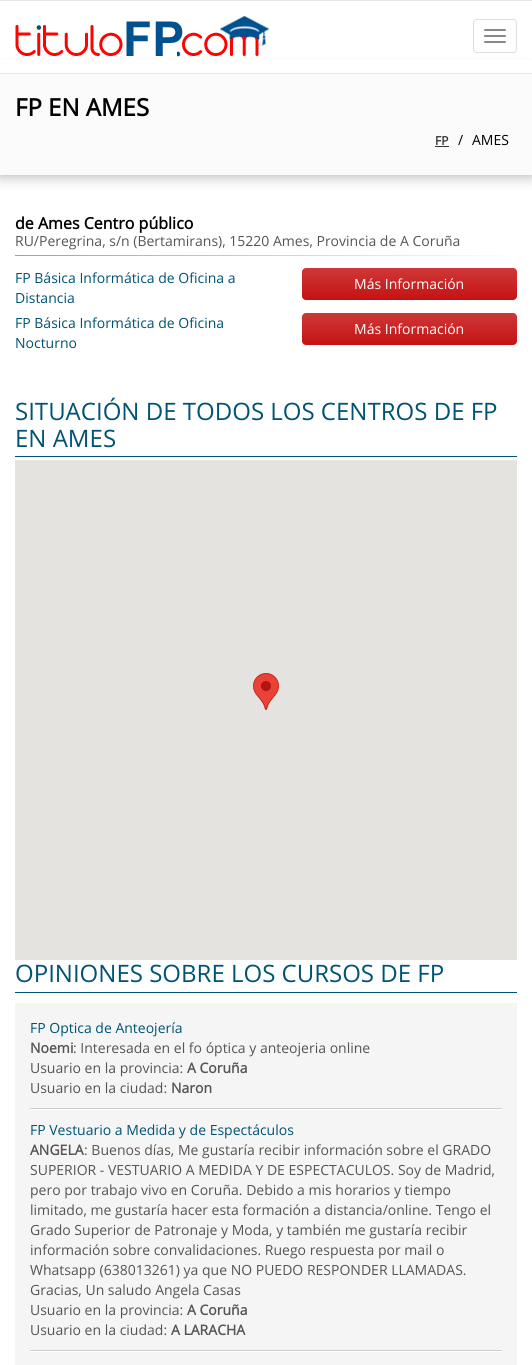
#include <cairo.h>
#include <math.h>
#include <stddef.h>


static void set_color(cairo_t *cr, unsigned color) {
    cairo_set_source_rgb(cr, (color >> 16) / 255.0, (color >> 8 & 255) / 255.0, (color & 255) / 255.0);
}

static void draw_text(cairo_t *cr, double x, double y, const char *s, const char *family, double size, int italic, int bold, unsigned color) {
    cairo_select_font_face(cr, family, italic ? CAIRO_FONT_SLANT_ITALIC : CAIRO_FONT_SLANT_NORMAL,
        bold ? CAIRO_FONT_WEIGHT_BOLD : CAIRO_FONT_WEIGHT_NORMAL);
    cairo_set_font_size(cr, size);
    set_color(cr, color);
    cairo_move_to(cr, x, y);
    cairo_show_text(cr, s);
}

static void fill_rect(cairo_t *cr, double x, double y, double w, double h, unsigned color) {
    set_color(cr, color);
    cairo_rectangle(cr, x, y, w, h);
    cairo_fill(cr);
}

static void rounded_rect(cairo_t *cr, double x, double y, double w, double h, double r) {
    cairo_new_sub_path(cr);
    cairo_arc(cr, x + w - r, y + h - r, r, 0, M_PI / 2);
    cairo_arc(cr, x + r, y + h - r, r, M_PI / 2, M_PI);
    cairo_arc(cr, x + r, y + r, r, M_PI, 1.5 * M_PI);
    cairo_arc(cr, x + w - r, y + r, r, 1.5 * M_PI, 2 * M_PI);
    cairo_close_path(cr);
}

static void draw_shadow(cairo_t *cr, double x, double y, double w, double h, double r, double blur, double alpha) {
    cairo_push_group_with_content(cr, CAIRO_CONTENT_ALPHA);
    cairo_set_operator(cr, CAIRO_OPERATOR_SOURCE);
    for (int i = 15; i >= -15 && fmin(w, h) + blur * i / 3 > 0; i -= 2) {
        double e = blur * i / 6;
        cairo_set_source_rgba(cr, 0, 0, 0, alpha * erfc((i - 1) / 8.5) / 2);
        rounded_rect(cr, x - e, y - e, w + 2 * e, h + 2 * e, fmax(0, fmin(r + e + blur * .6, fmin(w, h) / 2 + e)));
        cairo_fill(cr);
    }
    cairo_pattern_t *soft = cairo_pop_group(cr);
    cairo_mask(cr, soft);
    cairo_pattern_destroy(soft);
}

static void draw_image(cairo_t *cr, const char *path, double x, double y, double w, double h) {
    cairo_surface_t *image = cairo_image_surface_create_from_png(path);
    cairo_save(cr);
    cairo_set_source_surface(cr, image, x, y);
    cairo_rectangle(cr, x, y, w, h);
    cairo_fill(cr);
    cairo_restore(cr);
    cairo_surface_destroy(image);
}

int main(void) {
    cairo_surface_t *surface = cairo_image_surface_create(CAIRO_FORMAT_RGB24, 532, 1365);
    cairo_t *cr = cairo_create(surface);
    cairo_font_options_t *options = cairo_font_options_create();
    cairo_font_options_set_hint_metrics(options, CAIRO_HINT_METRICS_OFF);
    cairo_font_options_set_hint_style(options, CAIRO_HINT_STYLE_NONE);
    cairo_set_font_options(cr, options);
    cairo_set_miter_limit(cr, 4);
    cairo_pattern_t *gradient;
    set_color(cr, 0xFFFFFF);
    cairo_paint(cr);
    set_color(cr, 0x000000);
    draw_shadow(cr, 0, 74, 532, 101, 0, 7.5, 0.35);
    fill_rect(cr, 0, 60, 532, 13, 0xFFFFFF);
    fill_rect(cr, 0, 0, 532, 1, 0xE7E7E7);
    fill_rect(cr, 0, 73, 532, 1, 0xE7E7E7);
    draw_image(cr, "assets/img1.png", 15, 16, 254, 41);
    rounded_rect(cr, 473.5, 19.5, 43, 33, 3.5);
    set_color(cr, 0xDDDDDD);
    cairo_set_line_width(cr, 1);
    cairo_stroke(cr);
    set_color(cr, 0x888888);
    rounded_rect(cr, 484, 29, 22, 2, 1);
    cairo_fill(cr);
    rounded_rect(cr, 484, 35, 22, 2, 1);
    cairo_fill(cr);
    rounded_rect(cr, 484, 41, 22, 2, 1);
    cairo_fill(cr);
    fill_rect(cr, 0, 74, 532, 101, 0xFBFBFB);
    draw_text(cr, 15, 116, "FP EN AMES", "Open Sans", 24, 0, 1, 0x000000);
    draw_text(cr, 435, 145, "FP", "Open Sans", 12, 0, 1, 0x333333);
    fill_rect(cr, 435, 146, 14, 1, 0x333333);
    draw_text(cr, 458, 145, "/", "Open Sans", 14, 0, 0, 0x000000);
    draw_text(cr, 472, 145, "AMES", "Open Sans", 14, 0, 0, 0x000000);
    draw_text(cr, 15, 229, "de Ames Centro público", "Open Sans", 16, 0, 1, 0x000000);
    draw_text(cr, 15, 246, "RU/Peregrina, s/n (Bertamirans), 15220 Ames, Provincia de A Coruña", "Open Sans", 14, 0, 0, 0x555555);
    gradient = cairo_pattern_create_linear(15, 256, 517, 255);
    cairo_pattern_add_color_stop_rgba(gradient, 0, 0.631, 0.631, 0.631, 1);
    cairo_pattern_add_color_stop_rgba(gradient, 1, 1, 1, 1, 1);
    cairo_set_source(cr, gradient);
    cairo_pattern_destroy(gradient);
    cairo_rectangle(cr, 15, 255, 489, 1);
    cairo_fill(cr);
    draw_text(cr, 15, 283, "FP Básica Informática de Oficina a", "Open Sans", 14, 0, 0, 0x005374);
    draw_text(cr, 15, 303, "Distancia", "Open Sans", 14, 0, 0, 0x005374);
    gradient = cairo_pattern_create_linear(410, 268, 410, 300);
    cairo_pattern_add_color_stop_rgba(gradient, 0, 0.808, 0.22, 0.22, 1);
    cairo_pattern_add_color_stop_rgba(gradient, 1, 0.773, 0.071, 0.071, 1);
    cairo_set_source(cr, gradient);
    cairo_pattern_destroy(gradient);
    rounded_rect(cr, 302, 268, 215, 32, 4);
    cairo_fill(cr);
    draw_text(cr, 354, 289, "Más Información", "Open Sans", 14, 0, 0, 0xFFFFFF);
    draw_text(cr, 15, 328, "FP Básica Informática de Oficina", "Open Sans", 14, 0, 0, 0x005374);
    draw_text(cr, 15, 348, "Nocturno", "Open Sans", 14, 0, 0, 0x005374);
    gradient = cairo_pattern_create_linear(410, 313, 410, 345);
    cairo_pattern_add_color_stop_rgba(gradient, 0, 0.808, 0.22, 0.22, 1);
    cairo_pattern_add_color_stop_rgba(gradient, 1, 0.773, 0.071, 0.071, 1);
    cairo_set_source(cr, gradient);
    cairo_pattern_destroy(gradient);
    rounded_rect(cr, 302, 313, 215, 32, 4);
    cairo_fill(cr);
    draw_text(cr, 354, 334, "Más Información", "Open Sans", 14, 0, 0, 0xFFFFFF);
    fill_rect(cr, 15, 456, 502, 1, 0x005374);
    draw_text(cr, 15, 420, "SITUACIÓN DE TODOS LOS CENTROS DE FP", "Open Sans", 24, 0, 0, 0x005374);
    draw_text(cr, 15, 447, "EN AMES", "Open Sans", 24, 0, 0, 0x005374);
    fill_rect(cr, 15, 460, 502, 500, 0xE5E3DF);
    draw_image(cr, "assets/img2.png", 253, 673, 26, 37);
    fill_rect(cr, 15, 992, 502, 1, 0x005374);
    draw_text(cr, 15, 982, "OPINIONES SOBRE LOS CURSOS DE FP", "Open Sans", 24, 0, 0, 0x005374);
    fill_rect(cr, 15, 1003, 502, 362, 0xF5F5F5);
    fill_rect(cr, 30, 1108, 472, 1, 0xCCCCCC);
    draw_text(cr, 30, 1033, "FP Optica de Anteojería", "Open Sans", 14, 0, 0, 0x005374);
    draw_text(cr, 30, 1053, "Noemi", "Open Sans", 14, 0, 1, 0x555555);
    draw_text(cr, 73, 1053, ": Interesada en el fo óptica y anteojeria online", "Open Sans", 14, 0, 0, 0x555555);
    draw_text(cr, 30, 1073, "Usuario en la provincia:", "Open Sans", 14, 0, 0, 0x555555);
    draw_text(cr, 187, 1073, "A Coruña", "Open Sans", 14, 0, 1, 0x555555);
    draw_text(cr, 30, 1093, "Usuario en la ciudad:", "Open Sans", 14, 0, 0, 0x555555);
    draw_text(cr, 171, 1093, "Naron", "Open Sans", 14, 0, 1, 0x555555);
    fill_rect(cr, 30, 1109, 472, 1, 0xFFFFFF);
    fill_rect(cr, 30, 1350, 472, 1, 0xCCCCCC);
    draw_text(cr, 30, 1135, "FP Vestuario a Medida y de Espectáculos", "Open Sans", 14, 0, 0, 0x005374);
    draw_text(cr, 30, 1155, "ANGELA", "Open Sans", 14, 0, 1, 0x555555);
    draw_text(cr, 84, 1155, ": Buenos días, Me gustaría recibir información sobre el GRADO", "Open Sans", 14, 0, 0, 0x555555);
    draw_text(cr, 30, 1175, "SUPERIOR - VESTUARIO A MEDIDA Y DE ESPECTACULOS. Soy de Madrid,", "Open Sans", 14, 0, 0, 0x555555);
    draw_text(cr, 30, 1195, "pero por trabajo vivo en Coruña. Debido a mis horarios y tiempo", "Open Sans", 14, 0, 0, 0x555555);
    draw_text(cr, 30, 1215, "limitado, me gustaría hacer esta formación a distancia/online. Tengo el", "Open Sans", 14, 0, 0, 0x555555);
    draw_text(cr, 30, 1235, "Grado Superior de Patronaje y Moda, y también me gustaría recibir", "Open Sans", 14, 0, 0, 0x555555);
    draw_text(cr, 30, 1255, "información sobre convalidaciones. Ruego respuesta por mail o", "Open Sans", 14, 0, 0, 0x555555);
    draw_text(cr, 30, 1275, "Whatsapp (638013261) ya que NO PUEDO RESPONDER LLAMADAS.", "Open Sans", 14, 0, 0, 0x555555);
    draw_text(cr, 30, 1295, "Gracias, Un saludo Angela Casas", "Open Sans", 14, 0, 0, 0x555555);
    draw_text(cr, 30, 1315, "Usuario en la provincia:", "Open Sans", 14, 0, 0, 0x555555);
    draw_text(cr, 187, 1315, "A Coruña", "Open Sans", 14, 0, 1, 0x555555);
    draw_text(cr, 30, 1335, "Usuario en la ciudad:", "Open Sans", 14, 0, 0, 0x555555);
    draw_text(cr, 171, 1335, "A LARACHA", "Open Sans", 14, 0, 1, 0x555555);
    fill_rect(cr, 30, 1351, 472, 1, 0xFFFFFF);
    cairo_surface_write_to_png(surface, "output.png");
    cairo_font_options_destroy(options);
    cairo_destroy(cr);
    cairo_surface_destroy(surface);
    return 0;
}
